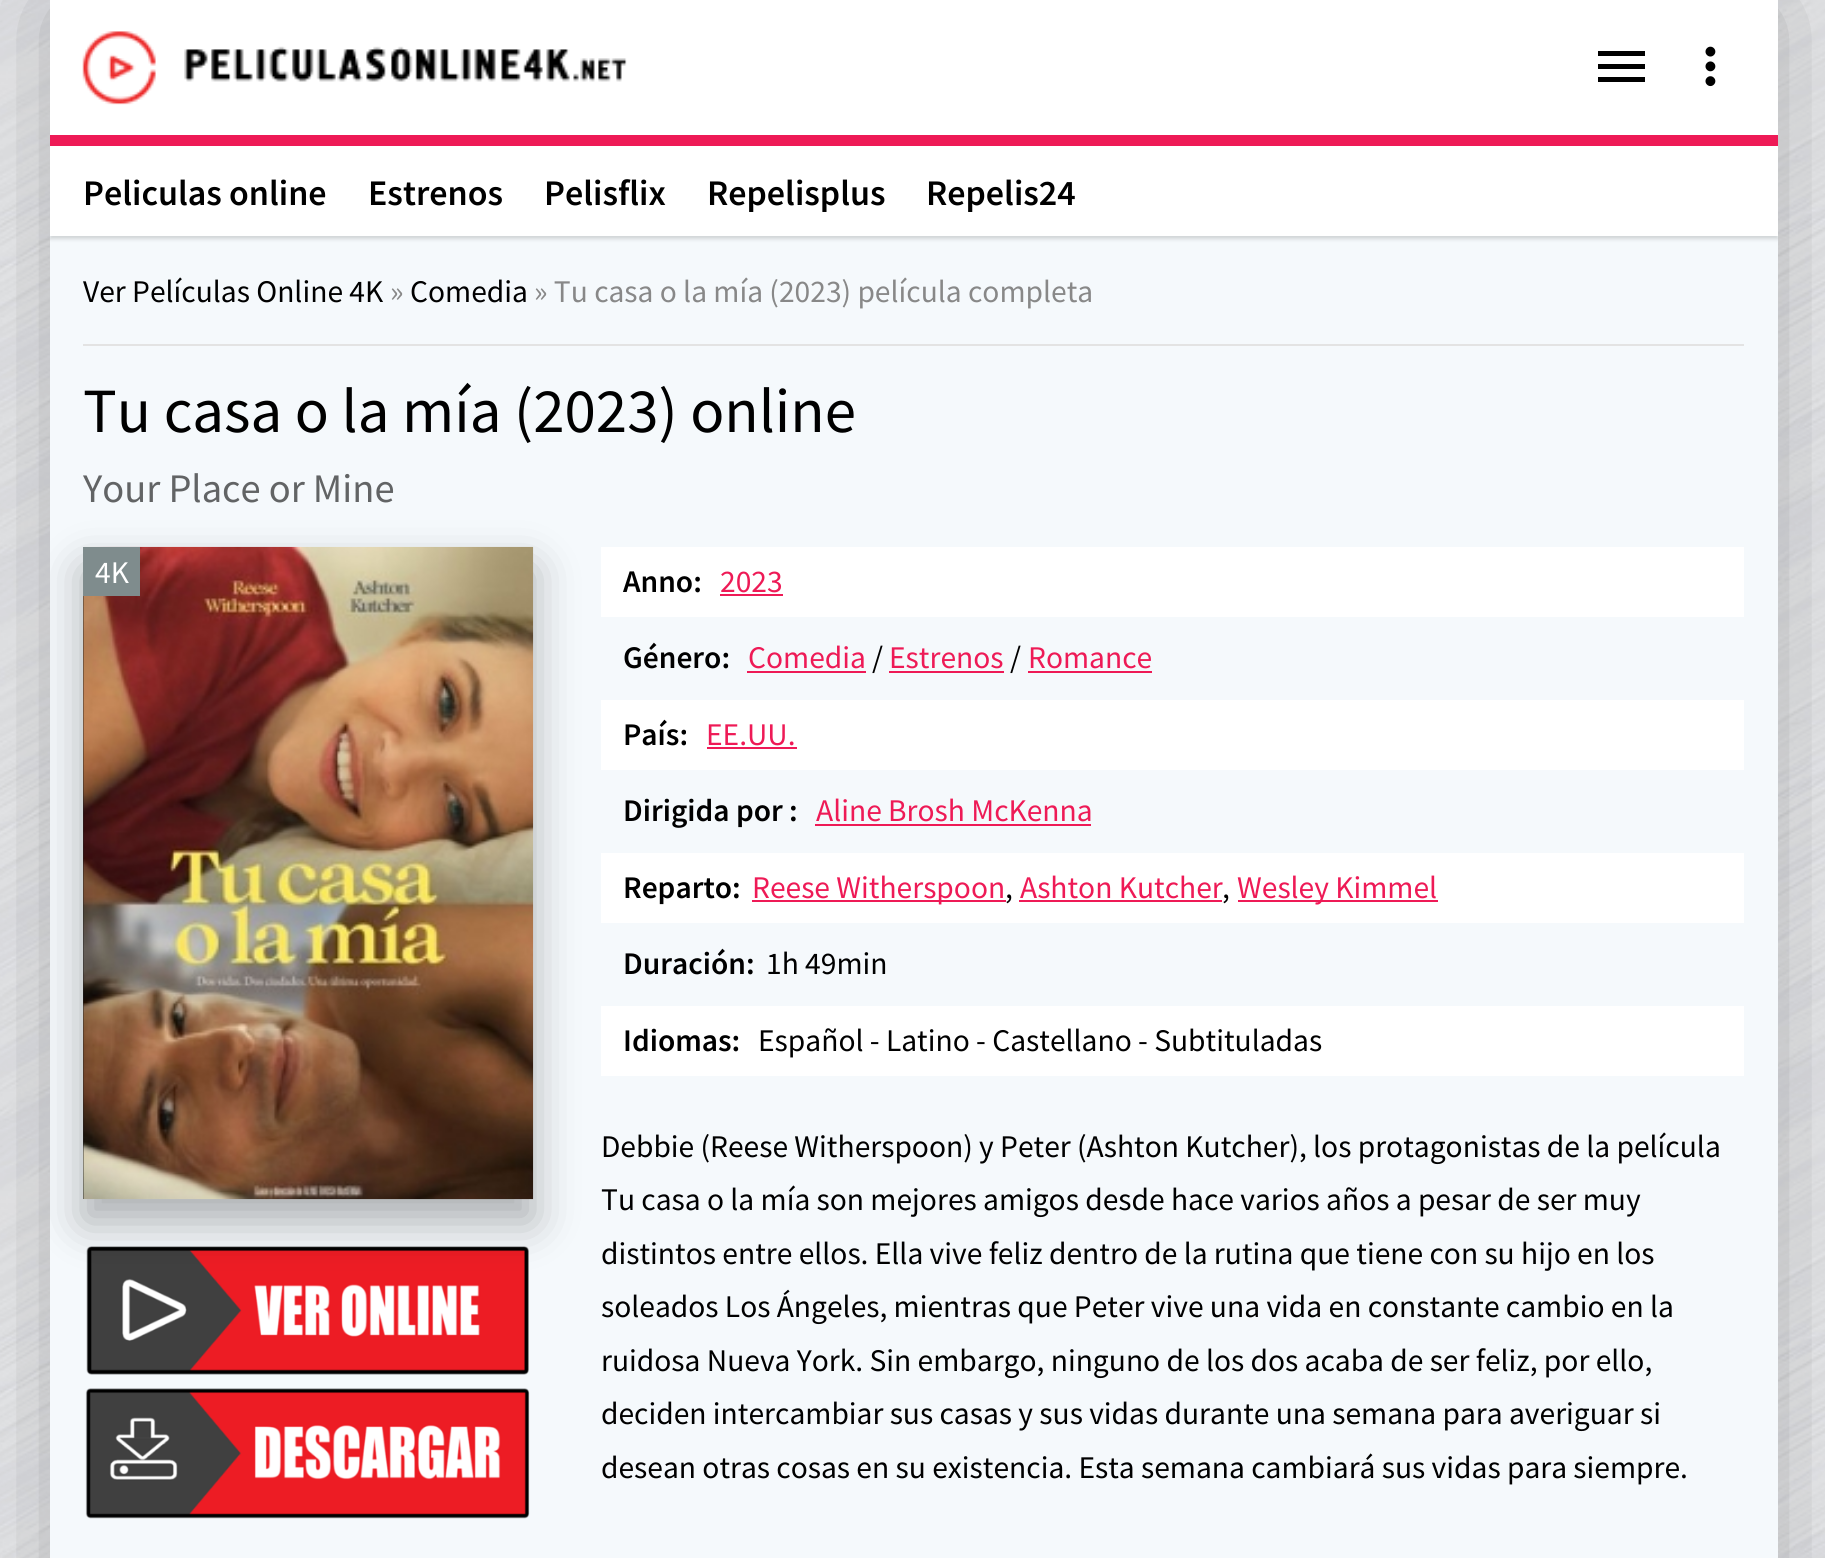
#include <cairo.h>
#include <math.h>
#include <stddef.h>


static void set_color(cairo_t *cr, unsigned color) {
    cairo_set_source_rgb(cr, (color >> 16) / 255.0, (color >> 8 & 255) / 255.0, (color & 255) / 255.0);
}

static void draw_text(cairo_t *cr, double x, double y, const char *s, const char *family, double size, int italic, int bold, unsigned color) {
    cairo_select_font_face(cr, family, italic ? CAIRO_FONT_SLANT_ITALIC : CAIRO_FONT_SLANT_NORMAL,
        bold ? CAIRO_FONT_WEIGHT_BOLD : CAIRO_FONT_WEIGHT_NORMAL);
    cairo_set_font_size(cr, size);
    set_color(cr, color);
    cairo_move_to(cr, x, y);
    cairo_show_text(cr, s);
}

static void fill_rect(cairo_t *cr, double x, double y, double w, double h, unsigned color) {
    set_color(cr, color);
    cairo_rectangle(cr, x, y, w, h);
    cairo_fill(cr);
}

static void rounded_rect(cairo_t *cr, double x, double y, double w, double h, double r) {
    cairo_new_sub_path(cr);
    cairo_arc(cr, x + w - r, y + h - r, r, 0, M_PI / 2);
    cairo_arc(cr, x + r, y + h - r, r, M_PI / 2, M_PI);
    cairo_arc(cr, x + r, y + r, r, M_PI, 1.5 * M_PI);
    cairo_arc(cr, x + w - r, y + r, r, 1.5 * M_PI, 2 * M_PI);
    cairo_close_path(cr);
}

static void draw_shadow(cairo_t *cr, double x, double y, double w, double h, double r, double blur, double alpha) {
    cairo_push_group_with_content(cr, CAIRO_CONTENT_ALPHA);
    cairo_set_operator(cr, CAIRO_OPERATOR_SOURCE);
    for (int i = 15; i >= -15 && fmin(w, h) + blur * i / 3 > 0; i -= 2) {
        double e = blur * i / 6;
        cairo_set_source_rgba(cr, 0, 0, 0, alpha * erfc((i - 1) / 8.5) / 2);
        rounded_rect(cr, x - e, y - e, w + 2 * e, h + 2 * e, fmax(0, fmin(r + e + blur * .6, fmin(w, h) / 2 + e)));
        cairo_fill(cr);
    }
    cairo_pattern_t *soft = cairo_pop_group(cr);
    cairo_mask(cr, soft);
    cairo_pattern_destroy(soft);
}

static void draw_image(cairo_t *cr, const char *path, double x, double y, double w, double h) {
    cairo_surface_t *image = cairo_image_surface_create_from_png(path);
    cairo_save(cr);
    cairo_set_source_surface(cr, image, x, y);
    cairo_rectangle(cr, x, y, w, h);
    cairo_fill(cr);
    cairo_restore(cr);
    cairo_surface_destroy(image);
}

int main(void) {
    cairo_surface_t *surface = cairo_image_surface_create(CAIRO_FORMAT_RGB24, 1825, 1558);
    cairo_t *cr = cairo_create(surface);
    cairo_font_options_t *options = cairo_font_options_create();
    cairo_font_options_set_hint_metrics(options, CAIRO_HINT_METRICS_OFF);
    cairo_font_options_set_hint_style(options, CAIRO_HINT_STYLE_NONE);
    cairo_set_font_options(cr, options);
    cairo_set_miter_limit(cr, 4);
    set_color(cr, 0xFFFFFF);
    cairo_paint(cr);
    draw_image(cr, "assets/img1.png", 0, 0, 1825, 1558);
    set_color(cr, 0x000000);
    draw_shadow(cr, 50, 0, 1728, 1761, 0, 67.5, 0.3);
    fill_rect(cr, 50, 236, 1728, 1322, 0xF5F9FC);
    fill_rect(cr, 50, 0, 1728, 135, 0xFFFFFF);
    fill_rect(cr, 50, 135, 1728, 11, 0xEE1A56);
    draw_image(cr, "assets/img2.png", 82, 31, 545, 74);
    set_color(cr, 0x000000);
    cairo_new_path(cr);
    cairo_move_to(cr, 1598, 82);
    cairo_line_to(cr, 1598, 77);
    cairo_line_to(cr, 1645, 77);
    cairo_line_to(cr, 1645, 82);
    cairo_close_path(cr);
    cairo_move_to(cr, 1598, 69);
    cairo_line_to(cr, 1598, 64);
    cairo_line_to(cr, 1645, 64);
    cairo_line_to(cr, 1645, 69);
    cairo_close_path(cr);
    cairo_move_to(cr, 1598, 51);
    cairo_line_to(cr, 1645, 51);
    cairo_line_to(cr, 1645, 56);
    cairo_line_to(cr, 1598, 56);
    cairo_close_path(cr);
    cairo_fill(cr);
    draw_image(cr, "assets/img3.png", 1705, 46, 11, 41);
    cairo_save(cr);
    cairo_rectangle(cr, 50, 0, 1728, 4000);
    cairo_clip(cr);
    set_color(cr, 0x000000);
    draw_shadow(cr, 50, 149, 1728, 90, 0, 2, 0.15);
    cairo_restore(cr);
    fill_rect(cr, 50, 146, 1728, 90, 0xFFFFFF);
    draw_text(cr, 83, 205, "Peliculas online", "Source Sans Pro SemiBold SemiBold", 36, 0, 0, 0x000000);
    draw_text(cr, 368, 205, "Estrenos", "Source Sans Pro SemiBold SemiBold", 36, 0, 0, 0x000000);
    draw_text(cr, 544, 205, "Pelisflix", "Source Sans Pro SemiBold SemiBold", 36, 0, 0, 0x000000);
    draw_text(cr, 707, 205, "Repelisplus", "Source Sans Pro SemiBold SemiBold", 36, 0, 0, 0x000000);
    draw_text(cr, 926, 205, "Repelis24", "Source Sans Pro SemiBold SemiBold", 36, 0, 0, 0x000000);
    fill_rect(cr, 83, 344, 1661, 2, 0xE3E3E3);
    draw_text(cr, 83, 302, "Ver Películas Online 4K", "Source Sans Pro", 31.5, 0, 0, 0x000000);
    draw_text(cr, 390, 302, "»", "Source Sans Pro", 31.5, 0, 0, 0x888888);
    draw_text(cr, 410, 302, "Comedia", "Source Sans Pro", 31.5, 0, 0, 0x000000);
    draw_text(cr, 534, 302, "» Tu casa o la mía (2023) película completa", "Source Sans Pro", 31.5, 0, 0, 0x888888);
    draw_text(cr, 83, 432, "Tu casa o la mía (2023) online", "Source Sans Pro", 63, 0, 0, 0x000000);
    draw_text(cr, 83, 502, "Your Place or Mine", "Source Sans Pro", 40.5, 0, 0, 0x626465);
    draw_image(cr, "assets/img5.png", 86, 1246, 443, 129);
    fill_rect(cr, 601, 547, 1143, 70, 0xFFFFFF);
    fill_rect(cr, 601, 700, 1143, 70, 0xFFFFFF);
    fill_rect(cr, 601, 853, 1143, 70, 0xFFFFFF);
    fill_rect(cr, 601, 1006, 1143, 70, 0xFFFFFF);
    cairo_save(cr);
    cairo_rectangle(cr, 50, 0, 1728, 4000);
    cairo_clip(cr);
    set_color(cr, 0x000000);
    draw_shadow(cr, 83, 569, 450, 653, 0, 22.5, 0.3);
    cairo_restore(cr);
    fill_rect(cr, 83, 596, 1, 603, 0x222222);
    draw_image(cr, "assets/img4.png", 83, 546, 451, 654);
    fill_rect(cr, 83, 547, 57, 49, 0x7F8C8D);
    draw_text(cr, 95, 583, "4K", "Source Sans Pro", 31.5, 0, 0, 0xFFFFFF);
    draw_image(cr, "assets/img6.png", 85, 1388, 445, 131);
    draw_text(cr, 623, 592, "Anno:", "Source Sans Pro SemiBold SemiBold", 31.5, 0, 0, 0x000000);
    draw_text(cr, 720, 592, "2023", "Source Sans Pro", 31.5, 0, 0, 0xEE1A56);
    fill_rect(cr, 720, 594, 63, 2, 0xEE1A56);
    draw_text(cr, 623, 668, "Género:", "Source Sans Pro SemiBold SemiBold", 31.5, 0, 0, 0x000000);
    draw_text(cr, 748, 668, "Comedia", "Source Sans Pro", 31.5, 0, 0, 0xEE1A56);
    fill_rect(cr, 747, 671, 119, 2, 0xEE1A56);
    draw_text(cr, 872, 668, "/", "Source Sans Pro", 31.5, 0, 0, 0x000000);
    draw_text(cr, 889, 668, "Estrenos", "Source Sans Pro", 31.5, 0, 0, 0xEE1A56);
    fill_rect(cr, 889, 671, 115, 2, 0xEE1A56);
    draw_text(cr, 1010, 668, "/", "Source Sans Pro", 31.5, 0, 0, 0x000000);
    draw_text(cr, 1028, 668, "Romance", "Source Sans Pro", 31.5, 0, 0, 0xEE1A56);
    fill_rect(cr, 1028, 671, 124, 2, 0xEE1A56);
    draw_text(cr, 623, 745, "País:", "Source Sans Pro SemiBold SemiBold", 31.5, 0, 0, 0x000000);
    draw_text(cr, 706, 745, "EE.UU.", "Source Sans Pro", 31.5, 0, 0, 0xEE1A56);
    fill_rect(cr, 707, 747, 90, 2, 0xEE1A56);
    draw_text(cr, 623, 821, "Dirigida por :", "Source Sans Pro SemiBold SemiBold", 31.5, 0, 0, 0x000000);
    draw_text(cr, 816, 821, "Aline Brosh McKenna", "Source Sans Pro", 31.5, 0, 0, 0xEE1A56);
    fill_rect(cr, 815, 824, 276, 2, 0xEE1A56);
    draw_text(cr, 623, 898, "Reparto:", "Source Sans Pro SemiBold SemiBold", 31.5, 0, 0, 0x000000);
    fill_rect(cr, 752, 900, 254, 2, 0xEE1A56);
    draw_text(cr, 752, 898, "Reese Witherspoon", "Source Sans Pro", 31.5, 0, 0, 0xEE1A56);
    draw_text(cr, 1005, 898, ",", "Source Sans Pro", 31.5, 0, 0, 0x000000);
    draw_text(cr, 1020, 898, "Ashton Kutcher", "Source Sans Pro", 31.5, 0, 0, 0xEE1A56);
    fill_rect(cr, 1019, 900, 203, 2, 0xEE1A56);
    draw_text(cr, 1222, 898, ",", "Source Sans Pro", 31.5, 0, 0, 0x000000);
    fill_rect(cr, 1238, 900, 200, 2, 0xEE1A56);
    draw_text(cr, 1237, 898, "Wesley Kimmel", "Source Sans Pro", 31.5, 0, 0, 0xEE1A56);
    draw_text(cr, 623, 974, "Duración:", "Source Sans Pro SemiBold SemiBold", 31.5, 0, 0, 0x000000);
    draw_text(cr, 766, 974, "1h 49min", "Source Sans Pro", 31.5, 0, 0, 0x000000);
    draw_text(cr, 623, 1051, "Idiomas:", "Source Sans Pro SemiBold SemiBold", 31.5, 0, 0, 0x000000);
    draw_text(cr, 758, 1051, "Español - Latino - Castellano - Subtituladas", "Source Sans Pro", 31.5, 0, 0, 0x000000);
    draw_text(cr, 601, 1157, "Debbie (Reese Witherspoon) y Peter (Ashton Kutcher), los protagonistas de la película", "Source Sans Pro", 31.5, 0, 0, 0x000000);
    draw_text(cr, 601, 1210, "Tu casa o la mía son mejores amigos desde hace varios años a pesar de ser muy", "Source Sans Pro", 31.5, 0, 0, 0x000000);
    draw_text(cr, 601, 1264, "distintos entre ellos. Ella vive feliz dentro de la rutina que tiene con su hijo en los", "Source Sans Pro", 31.5, 0, 0, 0x000000);
    draw_text(cr, 601, 1317, "soleados Los Ángeles, mientras que Peter vive una vida en constante cambio en la", "Source Sans Pro", 31.5, 0, 0, 0x000000);
    draw_text(cr, 601, 1371, "ruidosa Nueva York. Sin embargo, ninguno de los dos acaba de ser feliz, por ello,", "Source Sans Pro", 31.5, 0, 0, 0x000000);
    draw_text(cr, 601, 1424, "deciden intercambiar sus casas y sus vidas durante una semana para averiguar si", "Source Sans Pro", 31.5, 0, 0, 0x000000);
    draw_text(cr, 601, 1478, "desean otras cosas en su existencia. Esta semana cambiará sus vidas para siempre.", "Source Sans Pro", 31.5, 0, 0, 0x000000);
    cairo_surface_write_to_png(surface, "output.png");
    cairo_font_options_destroy(options);
    cairo_destroy(cr);
    cairo_surface_destroy(surface);
    return 0;
}
